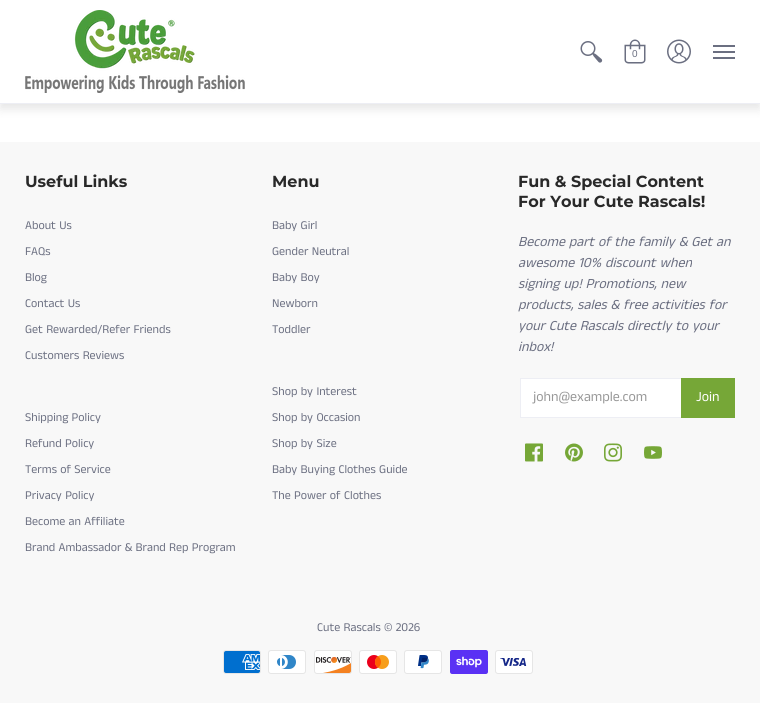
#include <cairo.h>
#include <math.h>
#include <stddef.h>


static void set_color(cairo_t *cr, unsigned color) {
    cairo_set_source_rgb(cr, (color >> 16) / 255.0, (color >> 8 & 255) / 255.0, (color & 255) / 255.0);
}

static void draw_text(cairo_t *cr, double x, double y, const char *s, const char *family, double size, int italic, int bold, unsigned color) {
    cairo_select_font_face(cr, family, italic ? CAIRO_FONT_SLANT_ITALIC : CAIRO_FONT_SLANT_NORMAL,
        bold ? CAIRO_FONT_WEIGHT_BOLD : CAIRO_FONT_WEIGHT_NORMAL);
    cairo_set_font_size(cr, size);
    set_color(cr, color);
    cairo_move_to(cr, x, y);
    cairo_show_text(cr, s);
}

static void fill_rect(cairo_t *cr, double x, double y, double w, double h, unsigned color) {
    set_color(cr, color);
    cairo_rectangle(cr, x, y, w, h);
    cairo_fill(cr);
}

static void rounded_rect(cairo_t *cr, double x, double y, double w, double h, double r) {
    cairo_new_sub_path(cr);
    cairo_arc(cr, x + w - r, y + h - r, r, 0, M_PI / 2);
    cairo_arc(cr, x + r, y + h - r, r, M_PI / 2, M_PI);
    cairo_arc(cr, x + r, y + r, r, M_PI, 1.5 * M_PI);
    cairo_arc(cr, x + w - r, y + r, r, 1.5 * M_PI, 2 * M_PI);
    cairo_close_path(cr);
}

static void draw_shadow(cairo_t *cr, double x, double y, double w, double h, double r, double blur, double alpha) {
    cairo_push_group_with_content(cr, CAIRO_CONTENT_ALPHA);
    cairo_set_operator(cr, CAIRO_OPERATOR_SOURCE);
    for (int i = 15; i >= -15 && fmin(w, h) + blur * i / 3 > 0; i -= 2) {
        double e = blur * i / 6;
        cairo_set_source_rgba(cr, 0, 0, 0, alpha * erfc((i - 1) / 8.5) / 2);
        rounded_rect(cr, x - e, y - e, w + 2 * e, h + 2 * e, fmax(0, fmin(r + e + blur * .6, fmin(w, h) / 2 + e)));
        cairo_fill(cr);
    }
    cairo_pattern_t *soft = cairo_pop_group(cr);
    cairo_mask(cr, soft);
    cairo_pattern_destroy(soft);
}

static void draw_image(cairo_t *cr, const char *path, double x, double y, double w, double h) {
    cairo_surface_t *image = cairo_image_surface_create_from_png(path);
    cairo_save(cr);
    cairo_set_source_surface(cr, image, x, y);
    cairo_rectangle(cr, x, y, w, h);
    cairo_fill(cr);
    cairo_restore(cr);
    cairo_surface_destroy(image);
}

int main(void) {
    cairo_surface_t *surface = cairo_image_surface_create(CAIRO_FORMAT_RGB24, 760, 703);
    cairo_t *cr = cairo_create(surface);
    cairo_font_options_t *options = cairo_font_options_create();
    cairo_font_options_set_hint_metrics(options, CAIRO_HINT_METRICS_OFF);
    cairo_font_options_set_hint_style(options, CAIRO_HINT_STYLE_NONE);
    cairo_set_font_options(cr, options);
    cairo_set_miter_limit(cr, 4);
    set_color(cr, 0xFFFFFF);
    cairo_paint(cr);
    set_color(cr, 0x000000);
    draw_shadow(cr, 0, 5, 760, 104, 0, 5, 0.1);
    fill_rect(cr, 0, 0, 760, 103, 0xFFFFFF);
    fill_rect(cr, 0, 103, 760, 1, 0xEDEEF4);
    draw_image(cr, "assets/img1.png", 25, 10, 220, 83);
    draw_image(cr, "assets/img2.png", 580, 41, 23, 22);
    draw_image(cr, "assets/img3.png", 624, 39, 22, 25);
    draw_text(cr, 632, 57, "0", "Liberation Sans", 10, 0, 0, 0x6B6F81);
    draw_image(cr, "assets/img4.png", 667, 39, 24, 25);
    fill_rect(cr, 713, 45, 22, 2, 0x6B6F81);
    fill_rect(cr, 713, 57, 22, 2, 0x6B6F81);
    fill_rect(cr, 713, 51, 22, 2, 0x6B6F81);
    fill_rect(cr, 0, 142, 760, 561, 0xF8F8F8);
    draw_text(cr, 25, 187, "Useful Links", "Montserrat", 16, 0, 1, 0x292929);
    draw_text(cr, 25, 229, "About Us", "Anek Tamil", 12, 0, 0, 0x6B6F81);
    draw_text(cr, 25, 255, "FAQs", "Anek Tamil", 12, 0, 0, 0x6B6F81);
    draw_text(cr, 25, 281, "Blog", "Anek Tamil", 12, 0, 0, 0x6B6F81);
    draw_text(cr, 25, 307, "Contact Us", "Anek Tamil", 12, 0, 0, 0x6B6F81);
    draw_text(cr, 25, 333, "Get Rewarded/Refer Friends", "Anek Tamil", 12, 0, 0, 0x6B6F81);
    draw_text(cr, 25, 359, "Customers Reviews", "Anek Tamil", 12, 0, 0, 0x6B6F81);
    draw_text(cr, 25, 421, "Shipping Policy", "Anek Tamil", 12, 0, 0, 0x6B6F81);
    draw_text(cr, 25, 447, "Refund Policy", "Anek Tamil", 12, 0, 0, 0x6B6F81);
    draw_text(cr, 25, 473, "Terms of Service", "Anek Tamil", 12, 0, 0, 0x6B6F81);
    draw_text(cr, 25, 499, "Privacy Policy", "Anek Tamil", 12, 0, 0, 0x6B6F81);
    draw_text(cr, 25, 525, "Become an Affiliate", "Anek Tamil", 12, 0, 0, 0x6B6F81);
    draw_text(cr, 25, 551, "Brand Ambassador & Brand Rep Program", "Anek Tamil", 12, 0, 0, 0x6B6F81);
    draw_text(cr, 272, 187, "Menu", "Montserrat", 16, 0, 1, 0x292929);
    draw_text(cr, 272, 229, "Baby Girl", "Anek Tamil", 12, 0, 0, 0x6B6F81);
    draw_text(cr, 272, 255, "Gender Neutral", "Anek Tamil", 12, 0, 0, 0x6B6F81);
    draw_text(cr, 272, 281, "Baby Boy", "Anek Tamil", 12, 0, 0, 0x6B6F81);
    draw_text(cr, 272, 307, "Newborn", "Anek Tamil", 12, 0, 0, 0x6B6F81);
    draw_text(cr, 272, 333, "Toddler", "Anek Tamil", 12, 0, 0, 0x6B6F81);
    draw_text(cr, 272, 395, "Shop by Interest", "Anek Tamil", 12, 0, 0, 0x6B6F81);
    draw_text(cr, 272, 421, "Shop by Occasion", "Anek Tamil", 12, 0, 0, 0x6B6F81);
    draw_text(cr, 272, 447, "Shop by Size", "Anek Tamil", 12, 0, 0, 0x6B6F81);
    draw_text(cr, 272, 473, "Baby Buying Clothes Guide", "Anek Tamil", 12, 0, 0, 0x6B6F81);
    draw_text(cr, 272, 499, "The Power of Clothes", "Anek Tamil", 12, 0, 0, 0x6B6F81);
    draw_text(cr, 518, 187, "Fun & Special Content", "Montserrat", 16, 0, 1, 0x292929);
    draw_text(cr, 518, 207, "For Your Cute Rascals!", "Montserrat", 16, 0, 1, 0x292929);
    draw_text(cr, 518, 246, "Become part of the family & Get an", "Anek Tamil", 14, 1, 0, 0x6B6F81);
    draw_text(cr, 518, 267, "awesome 10% discount when", "Anek Tamil", 14, 1, 0, 0x6B6F81);
    draw_text(cr, 518, 288, "signing up! Promotions, new", "Anek Tamil", 14, 1, 0, 0x6B6F81);
    draw_text(cr, 518, 309, "products, sales & free activities for", "Anek Tamil", 14, 1, 0, 0x6B6F81);
    draw_text(cr, 518, 330, "your Cute Rascals directly to your", "Anek Tamil", 14, 1, 0, 0x6B6F81);
    draw_text(cr, 518, 351, "inbox!", "Anek Tamil", 14, 1, 0, 0x6B6F81);
    fill_rect(cr, 521, 379, 160, 38, 0xFFFFFF);
    cairo_rectangle(cr, 520.5, 378.5, 162, 39);
    set_color(cr, 0xEDEEF4);
    cairo_set_line_width(cr, 1);
    cairo_stroke(cr);
    draw_text(cr, 533, 401, "john@example.com", "Anek Tamil", 14, 0, 0, 0x989898);
    fill_rect(cr, 681, 378, 54, 40, 0x76A737);
    draw_text(cr, 696, 401, "Join", "Anek Tamil", 14, 0, 0, 0xFFFFFF);
    draw_image(cr, "assets/img5.png", 525, 443, 18, 19);
    draw_image(cr, "assets/img6.png", 565, 443, 18, 19);
    draw_image(cr, "assets/img7.png", 604, 443, 18, 19);
    draw_image(cr, "assets/img8.png", 644, 446, 18, 13);
    draw_text(cr, 317, 631, "Cute Rascals © 2026", "Anek Tamil", 12, 0, 0, 0x6B6F81);
    draw_image(cr, "assets/img9.png", 223, 650, 38, 24);
    draw_image(cr, "assets/img10.png", 268, 650, 38, 24);
    draw_image(cr, "assets/img11.png", 314, 650, 38, 24);
    draw_image(cr, "assets/img12.png", 359, 650, 38, 24);
    draw_image(cr, "assets/img13.png", 404, 650, 38, 24);
    draw_image(cr, "assets/img14.png", 450, 650, 38, 24);
    draw_image(cr, "assets/img15.png", 495, 650, 38, 24);
    cairo_surface_write_to_png(surface, "output.png");
    cairo_font_options_destroy(options);
    cairo_destroy(cr);
    cairo_surface_destroy(surface);
    return 0;
}
